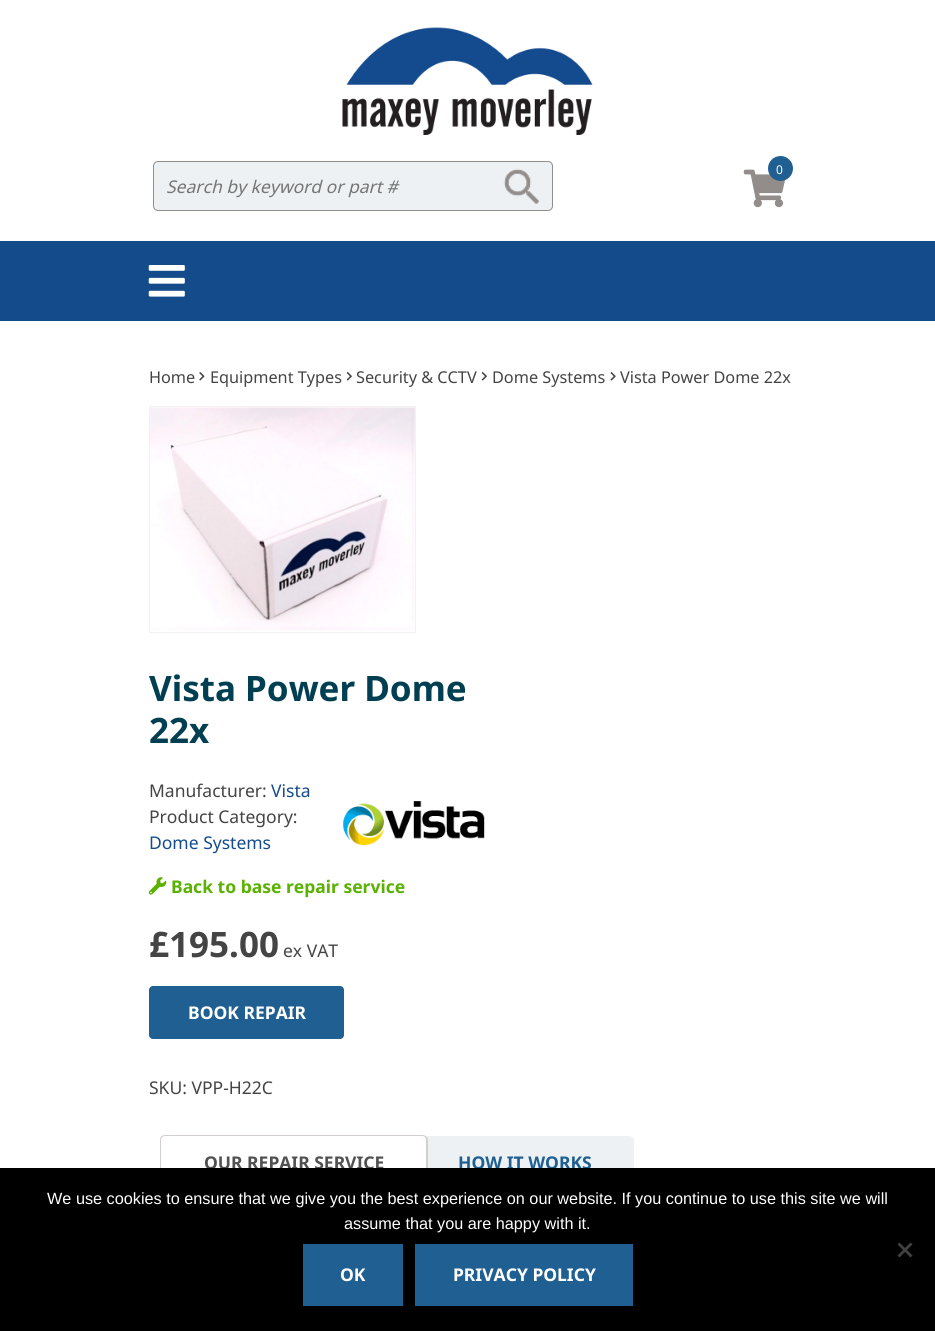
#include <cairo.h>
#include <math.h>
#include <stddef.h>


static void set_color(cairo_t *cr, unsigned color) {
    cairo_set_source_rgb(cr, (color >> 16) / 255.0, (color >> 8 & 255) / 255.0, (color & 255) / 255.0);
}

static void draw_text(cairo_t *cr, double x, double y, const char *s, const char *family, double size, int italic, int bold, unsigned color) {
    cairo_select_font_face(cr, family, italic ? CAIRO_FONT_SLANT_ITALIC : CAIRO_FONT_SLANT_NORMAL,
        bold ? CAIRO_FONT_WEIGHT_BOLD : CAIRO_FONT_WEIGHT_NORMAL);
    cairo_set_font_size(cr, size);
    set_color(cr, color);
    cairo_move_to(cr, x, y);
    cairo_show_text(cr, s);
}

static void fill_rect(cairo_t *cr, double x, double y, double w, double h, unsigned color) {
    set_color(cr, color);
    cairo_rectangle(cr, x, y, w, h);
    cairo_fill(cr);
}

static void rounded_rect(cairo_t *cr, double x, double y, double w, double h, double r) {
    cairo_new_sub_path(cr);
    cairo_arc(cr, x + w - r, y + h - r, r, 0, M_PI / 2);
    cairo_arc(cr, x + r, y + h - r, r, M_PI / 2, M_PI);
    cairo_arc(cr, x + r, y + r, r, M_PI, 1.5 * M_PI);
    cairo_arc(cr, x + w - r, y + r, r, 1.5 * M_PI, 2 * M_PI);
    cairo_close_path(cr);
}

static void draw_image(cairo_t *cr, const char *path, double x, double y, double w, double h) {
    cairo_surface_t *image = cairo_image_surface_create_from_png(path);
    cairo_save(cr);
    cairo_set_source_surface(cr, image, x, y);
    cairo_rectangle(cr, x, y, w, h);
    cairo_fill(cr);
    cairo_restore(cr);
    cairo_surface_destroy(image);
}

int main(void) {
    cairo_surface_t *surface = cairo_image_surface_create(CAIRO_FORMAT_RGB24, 935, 1331);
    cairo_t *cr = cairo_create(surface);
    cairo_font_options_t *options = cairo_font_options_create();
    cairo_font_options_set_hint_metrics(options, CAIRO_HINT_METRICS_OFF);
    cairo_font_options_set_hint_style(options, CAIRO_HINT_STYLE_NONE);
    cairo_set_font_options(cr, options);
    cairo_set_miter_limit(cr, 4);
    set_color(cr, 0xFFFFFF);
    cairo_paint(cr);
    draw_image(cr, "assets/img1.png", 342, 27, 251, 108);
    draw_image(cr, "assets/img2.png", 743, 169, 43, 39);
    set_color(cr, 0x1F5F92);
    cairo_arc(cr, 780.5, 168.5, 12.5, 0, 2 * M_PI);
    cairo_fill(cr);
    draw_text(cr, 776, 174, "0", "Noto Sans", 12, 0, 0, 0xFFFFFF);
    set_color(cr, 0xEDF1F4);
    rounded_rect(cr, 153.5, 161.5, 399, 49, 4.5);
    cairo_fill_preserve(cr);
    set_color(cr, 0x928D8A);
    cairo_set_line_width(cr, 1);
    cairo_stroke(cr);
    draw_text(cr, 166, 193, "Search by keyword or part #", "Noto Sans", 17.5, 1, 0, 0x757575);
    draw_image(cr, "assets/img3.png", 503, 168, 36, 36);
    fill_rect(cr, 0, 241, 935, 80, 0x144B8B);
    draw_image(cr, "assets/img4.png", 148, 265, 37, 32);
    draw_text(cr, 149, 383, "Home", "Noto Sans", 16.25, 0, 0, 0x444444);
    draw_image(cr, "assets/img5.png", 199, 372, 6, 9);
    draw_text(cr, 210, 383, "Equipment Types", "Noto Sans", 16.25, 0, 0, 0x444444);
    draw_image(cr, "assets/img6.png", 346, 372, 6, 9);
    draw_text(cr, 356, 383, "Security & CCTV", "Noto Sans", 16.25, 0, 0, 0x444444);
    draw_image(cr, "assets/img6.png", 481, 372, 6, 9);
    draw_text(cr, 492, 383, "Dome Systems", "Noto Sans", 16.25, 0, 0, 0x444444);
    draw_image(cr, "assets/img7.png", 610, 372, 6, 9);
    draw_text(cr, 620, 383, "Vista Power Dome 22x", "Noto Sans", 16.25, 0, 0, 0x444444);
    cairo_rectangle(cr, 149.5, 406.5, 266, 226);
    set_color(cr, 0xF2F2F2);
    cairo_stroke(cr);
    draw_image(cr, "assets/img8.png", 150, 407, 265, 224);
    draw_text(cr, 149, 701, "Vista Power Dome", "Noto Sans", 35, 0, 1, 0x003E52);
    draw_text(cr, 149, 743, "22x", "Noto Sans", 35, 0, 1, 0x003E52);
    draw_text(cr, 149, 797, "Manufacturer:", "Noto Sans", 17.5, 0, 0, 0x444444);
    draw_text(cr, 271, 797, "Vista", "Noto Sans", 17.5, 0, 0, 0x144B8B);
    draw_text(cr, 149, 823, "Product Category:", "Noto Sans", 17.5, 0, 0, 0x444444);
    draw_text(cr, 149, 849, "Dome Systems", "Noto Sans", 17.5, 0, 0, 0x144B8B);
    draw_image(cr, "assets/img9.png", 343, 801, 142, 45);
    draw_image(cr, "assets/img10.png", 148, 877, 19, 18);
    draw_text(cr, 171, 893, "Back to base repair service", "Noto Sans", 17.5, 0, 1, 0x59B200);
    draw_text(cr, 149, 957, "£195.00", "Noto Sans", 35, 0, 1, 0x444444);
    draw_text(cr, 283, 957, "ex VAT", "Noto Sans", 17.5, 0, 0, 0x444444);
    set_color(cr, 0x1F5F92);
    rounded_rect(cr, 149, 986, 195, 53, 4);
    cairo_fill(cr);
    draw_text(cr, 188, 1019, "BOOK REPAIR", "Noto Sans", 17.5, 0, 1, 0xFFFFFF);
    draw_text(cr, 149, 1094, "SKU: VPP-H22C", "Noto Sans", 17.5, 0, 0, 0x444444);
    set_color(cr, 0xEDF1F4);
    cairo_new_path(cr);
    cairo_move_to(cr, 420, 1136);
    cairo_line_to(cr, 629, 1136);
    cairo_curve_to(cr, 632, 1136, 634, 1138, 634, 1141);
    cairo_line_to(cr, 634, 1188);
    cairo_line_to(cr, 415, 1188);
    cairo_line_to(cr, 415, 1141);
    cairo_curve_to(cr, 415, 1138, 417, 1136, 420, 1136);
    cairo_close_path(cr);
    cairo_fill(cr);
    set_color(cr, 0xFFFFFF);
    cairo_new_path(cr);
    cairo_move_to(cr, 165, 1135);
    cairo_line_to(cr, 423, 1135);
    cairo_curve_to(cr, 426, 1135, 428, 1137, 428, 1140);
    cairo_line_to(cr, 428, 1188);
    cairo_line_to(cr, 160, 1188);
    cairo_line_to(cr, 160, 1140);
    cairo_curve_to(cr, 160, 1137, 162, 1135, 165, 1135);
    cairo_close_path(cr);
    cairo_fill(cr);
    set_color(cr, 0xD3CED2);
    cairo_set_fill_rule(cr, CAIRO_FILL_RULE_EVEN_ODD);
    cairo_new_path(cr);
    cairo_move_to(cr, 165, 1135);
    cairo_line_to(cr, 422, 1135);
    cairo_curve_to(cr, 425, 1135, 428, 1137, 428, 1140);
    cairo_line_to(cr, 428, 1188);
    cairo_line_to(cr, 160, 1188);
    cairo_line_to(cr, 160, 1140);
    cairo_curve_to(cr, 160, 1137, 162, 1135, 165, 1135);
    cairo_close_path(cr);
    cairo_move_to(cr, 165, 1136);
    cairo_line_to(cr, 422, 1136);
    cairo_curve_to(cr, 425, 1136, 426, 1138, 426, 1140);
    cairo_line_to(cr, 426, 1188);
    cairo_line_to(cr, 161, 1188);
    cairo_line_to(cr, 161, 1140);
    cairo_curve_to(cr, 161, 1138, 163, 1136, 165, 1136);
    cairo_close_path(cr);
    cairo_fill(cr);
    draw_text(cr, 204, 1169, "OUR REPAIR SERVICE", "Noto Sans", 17.5, 0, 1, 0x515151);
    draw_text(cr, 458, 1169, "HOW IT WORKS", "Noto Sans", 17.5, 0, 1, 0x1F5F92);
    fill_rect(cr, 0, 1168, 935, 163, 0x000000);
    draw_text(cr, 47, 1204, "We use cookies to ensure that we give you the best experience on our website. If you continue to use this site we will", "Liberation Sans", 16.25, 0, 0, 0xFFFFFF);
    draw_text(cr, 344, 1229, "assume that you are happy with it.", "Liberation Sans", 16.25, 0, 0, 0xFFFFFF);
    set_color(cr, 0x404040);
    cairo_set_fill_rule(cr, CAIRO_FILL_RULE_WINDING);
    cairo_new_path(cr);
    cairo_move_to(cr, 910.5, 1242.5);
    cairo_line_to(cr, 912.5, 1244.5);
    cairo_line_to(cr, 899.5, 1257.5);
    cairo_line_to(cr, 897.5, 1255.5);
    cairo_close_path(cr);
    cairo_fill(cr);
    cairo_new_path(cr);
    cairo_move_to(cr, 897.5, 1244.5);
    cairo_line_to(cr, 899.5, 1242.5);
    cairo_line_to(cr, 912.5, 1255.5);
    cairo_line_to(cr, 910.5, 1257.5);
    cairo_close_path(cr);
    cairo_fill(cr);
    fill_rect(cr, 303, 1244, 100, 62, 0x1F5F92);
    draw_text(cr, 340, 1281, "OK", "Noto Sans", 17.5, 0, 1, 0xFFFFFF);
    fill_rect(cr, 415, 1244, 218, 62, 0x1F5F92);
    draw_text(cr, 453, 1281, "PRIVACY POLICY", "Noto Sans", 17.5, 0, 1, 0xFFFFFF);
    cairo_surface_write_to_png(surface, "output.png");
    cairo_font_options_destroy(options);
    cairo_destroy(cr);
    cairo_surface_destroy(surface);
    return 0;
}
